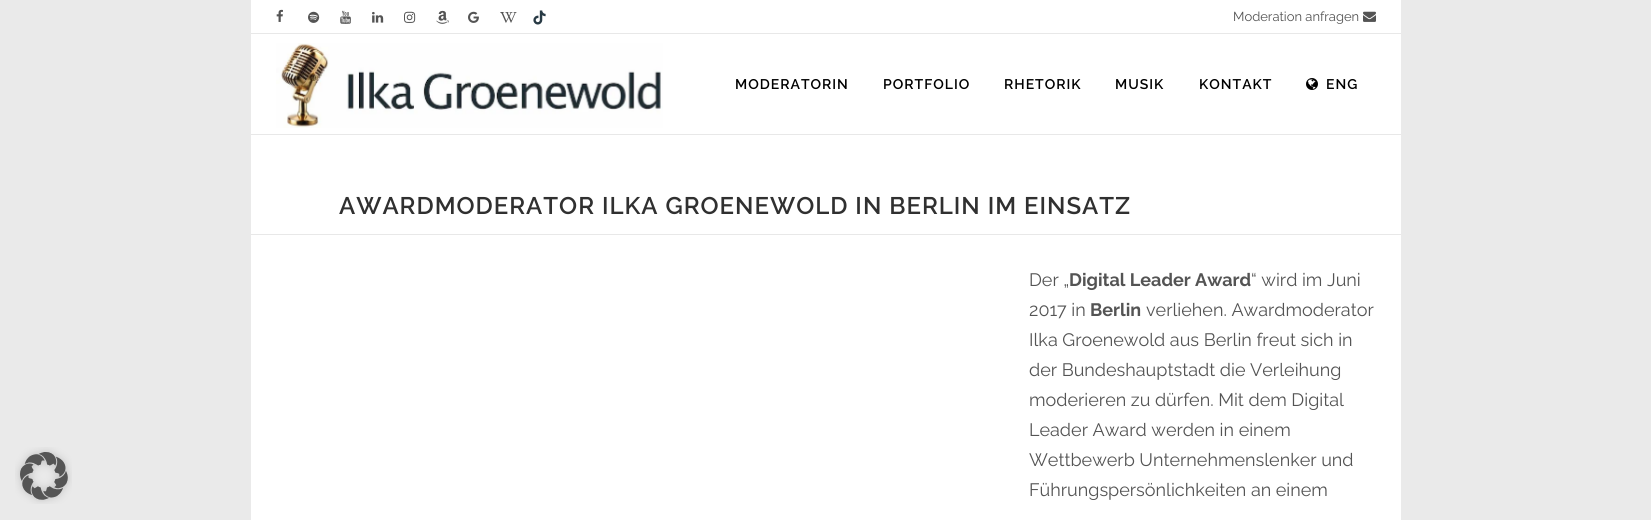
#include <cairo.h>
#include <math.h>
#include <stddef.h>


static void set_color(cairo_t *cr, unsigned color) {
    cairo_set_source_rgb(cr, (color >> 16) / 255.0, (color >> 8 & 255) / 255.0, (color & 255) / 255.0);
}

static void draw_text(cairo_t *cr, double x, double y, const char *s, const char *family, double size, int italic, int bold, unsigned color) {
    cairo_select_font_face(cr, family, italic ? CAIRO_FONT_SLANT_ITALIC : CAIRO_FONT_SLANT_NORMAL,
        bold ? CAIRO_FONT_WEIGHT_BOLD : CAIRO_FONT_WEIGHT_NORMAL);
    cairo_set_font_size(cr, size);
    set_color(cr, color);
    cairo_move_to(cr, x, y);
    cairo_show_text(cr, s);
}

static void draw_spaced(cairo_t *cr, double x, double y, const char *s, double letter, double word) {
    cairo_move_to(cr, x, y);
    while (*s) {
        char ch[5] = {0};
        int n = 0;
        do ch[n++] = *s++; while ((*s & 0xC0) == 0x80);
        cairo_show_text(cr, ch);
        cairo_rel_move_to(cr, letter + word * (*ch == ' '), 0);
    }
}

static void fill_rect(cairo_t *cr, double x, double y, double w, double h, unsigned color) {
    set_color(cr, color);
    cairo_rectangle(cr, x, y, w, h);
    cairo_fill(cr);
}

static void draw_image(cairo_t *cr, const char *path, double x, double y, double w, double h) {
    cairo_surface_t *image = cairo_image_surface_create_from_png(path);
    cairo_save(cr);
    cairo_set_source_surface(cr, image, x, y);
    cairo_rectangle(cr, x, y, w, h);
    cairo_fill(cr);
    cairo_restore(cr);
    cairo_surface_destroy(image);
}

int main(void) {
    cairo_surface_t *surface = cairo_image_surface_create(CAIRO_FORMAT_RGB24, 1651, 520);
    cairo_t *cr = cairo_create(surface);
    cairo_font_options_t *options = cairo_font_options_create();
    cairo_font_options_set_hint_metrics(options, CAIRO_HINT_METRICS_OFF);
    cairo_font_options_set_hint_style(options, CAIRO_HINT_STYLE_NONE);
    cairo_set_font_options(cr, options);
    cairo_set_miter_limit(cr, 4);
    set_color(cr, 0xEAEAEA);
    cairo_paint(cr);
    draw_image(cr, "assets/img1.png", 15, 447, 57, 57);
    fill_rect(cr, 251, 0, 1150, 520, 0xFFFFFF);
    fill_rect(cr, 251, 33, 1150, 1, 0xE8E8E8);
    draw_image(cr, "assets/img2.png", 276, 9, 7, 13);
    draw_image(cr, "assets/img3.png", 308, 11, 12, 12);
    draw_image(cr, "assets/img4.png", 340, 10, 11, 14);
    draw_image(cr, "assets/img5.png", 372, 11, 12, 12);
    draw_image(cr, "assets/img6.png", 404, 11, 12, 12);
    draw_image(cr, "assets/img7.png", 436, 10, 13, 14);
    draw_image(cr, "assets/img8.png", 468, 11, 11, 12);
    draw_image(cr, "assets/img9.png", 500, 12, 17, 11);
    draw_image(cr, "assets/img10.png", 533, 10, 13, 15);
    draw_text(cr, 1233, 21, "Moderation anfragen", "Raleway", 13, 0, 0, 0x545454);
    draw_image(cr, "assets/img11.png", 1363, 11, 13, 11);
    fill_rect(cr, 251, 134, 1150, 1, 0xE8E8E8);
    draw_image(cr, "assets/img12.png", 276, 43, 387, 85);
    cairo_select_font_face(cr, "Raleway SemiBold", CAIRO_FONT_SLANT_NORMAL, CAIRO_FONT_WEIGHT_NORMAL);
    cairo_set_font_size(cr, 14);
    set_color(cr, 0x000000);
    draw_spaced(cr, 735, 89, "MODERATORIN", 1, 0);
    draw_spaced(cr, 883, 89, "PORTFOLIO", 1, 0);
    draw_spaced(cr, 1004, 89, "RHETORIK", 1, 0);
    draw_spaced(cr, 1115, 89, "MUSIK", 1, 0);
    draw_spaced(cr, 1199, 89, "KONTAKT", 1, 0);
    draw_image(cr, "assets/img13.png", 1306, 78, 12, 12);
    draw_spaced(cr, 1326, 89, "ENG", 1, 0);
    fill_rect(cr, 251, 234, 1150, 1, 0xE8E8E8);
    cairo_set_font_size(cr, 24);
    set_color(cr, 0x303030);
    draw_spaced(cr, 339, 214, "AWARDMODERATOR ILKA GROENEWOLD IN BERLIN IM EINSATZ", 1, 0);
    draw_text(cr, 1029, 286, "Der „", "Raleway", 18, 0, 0, 0x545454);
    draw_text(cr, 1069, 286, "Digital Leader Award", "Raleway", 18, 0, 1, 0x545454);
    draw_text(cr, 1251, 286, "“ wird im Juni", "Raleway", 18, 0, 0, 0x545454);
    draw_text(cr, 1029, 316, "2017 in", "Raleway", 18, 0, 0, 0x545454);
    draw_text(cr, 1090, 316, "Berlin", "Raleway", 18, 0, 1, 0x545454);
    draw_text(cr, 1146, 316, "verliehen. Awardmoderator", "Raleway", 18, 0, 0, 0x545454);
    draw_text(cr, 1029, 346, "Ilka Groenewold aus Berlin freut sich in", "Raleway", 18, 0, 0, 0x545454);
    draw_text(cr, 1029, 376, "der Bundeshauptstadt die Verleihung", "Raleway", 18, 0, 0, 0x545454);
    draw_text(cr, 1029, 406, "moderieren zu dürfen. Mit dem Digital", "Raleway", 18, 0, 0, 0x545454);
    draw_text(cr, 1029, 436, "Leader Award werden in einem", "Raleway", 18, 0, 0, 0x545454);
    draw_text(cr, 1029, 466, "Wettbewerb Unternehmenslenker und", "Raleway", 18, 0, 0, 0x545454);
    draw_text(cr, 1029, 496, "Führungspersönlichkeiten an einem", "Raleway", 18, 0, 0, 0x545454);
    cairo_surface_write_to_png(surface, "output.png");
    cairo_font_options_destroy(options);
    cairo_destroy(cr);
    cairo_surface_destroy(surface);
    return 0;
}
